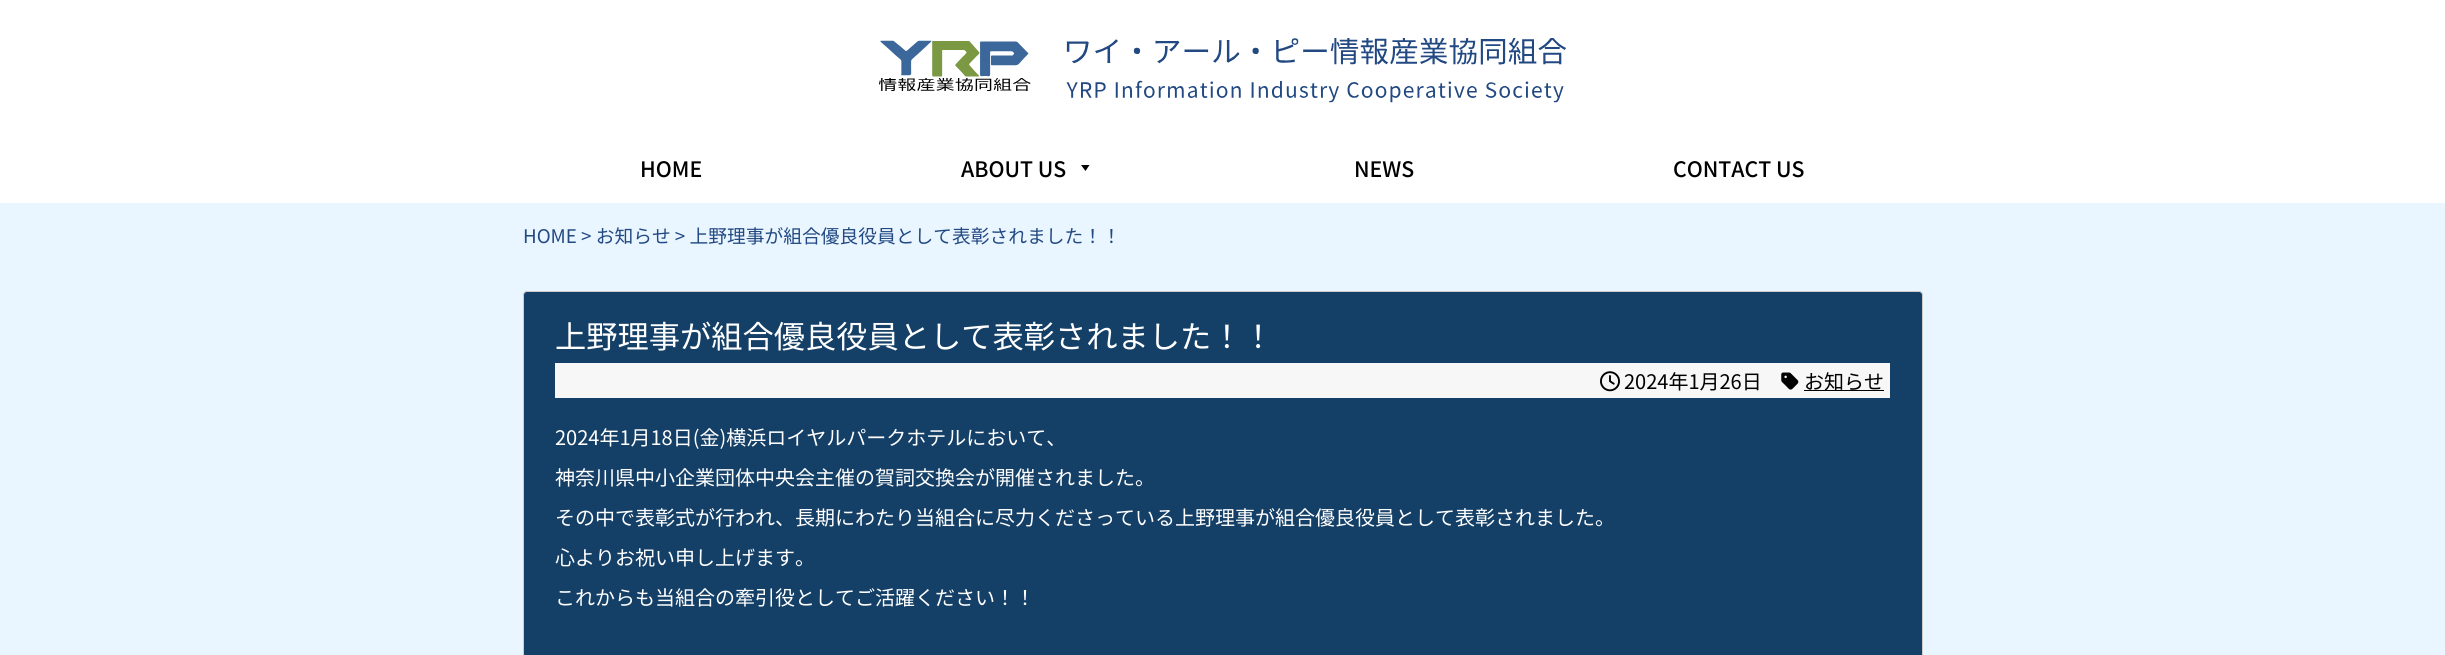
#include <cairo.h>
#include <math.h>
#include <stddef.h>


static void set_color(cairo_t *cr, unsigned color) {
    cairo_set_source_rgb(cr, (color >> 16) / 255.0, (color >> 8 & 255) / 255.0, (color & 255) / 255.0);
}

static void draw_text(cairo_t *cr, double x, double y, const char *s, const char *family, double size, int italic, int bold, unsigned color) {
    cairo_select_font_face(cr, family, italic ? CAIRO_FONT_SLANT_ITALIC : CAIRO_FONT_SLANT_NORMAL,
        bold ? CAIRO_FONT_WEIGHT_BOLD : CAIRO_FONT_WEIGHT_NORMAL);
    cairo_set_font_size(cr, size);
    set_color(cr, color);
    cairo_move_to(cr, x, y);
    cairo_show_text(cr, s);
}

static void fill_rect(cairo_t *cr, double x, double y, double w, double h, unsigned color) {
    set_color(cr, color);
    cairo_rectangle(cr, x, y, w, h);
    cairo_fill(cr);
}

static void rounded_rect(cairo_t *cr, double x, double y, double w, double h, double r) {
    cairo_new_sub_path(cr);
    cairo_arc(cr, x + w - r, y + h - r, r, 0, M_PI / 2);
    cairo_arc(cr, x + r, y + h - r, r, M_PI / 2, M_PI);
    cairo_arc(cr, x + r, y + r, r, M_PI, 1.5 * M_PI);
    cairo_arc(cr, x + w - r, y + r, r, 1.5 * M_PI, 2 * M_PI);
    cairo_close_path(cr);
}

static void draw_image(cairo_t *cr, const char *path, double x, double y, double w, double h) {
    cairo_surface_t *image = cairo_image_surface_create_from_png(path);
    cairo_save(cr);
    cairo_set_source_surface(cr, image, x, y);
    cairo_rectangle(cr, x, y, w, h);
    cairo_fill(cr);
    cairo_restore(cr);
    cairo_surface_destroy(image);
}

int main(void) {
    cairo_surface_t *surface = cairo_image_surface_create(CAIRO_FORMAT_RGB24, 2445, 655);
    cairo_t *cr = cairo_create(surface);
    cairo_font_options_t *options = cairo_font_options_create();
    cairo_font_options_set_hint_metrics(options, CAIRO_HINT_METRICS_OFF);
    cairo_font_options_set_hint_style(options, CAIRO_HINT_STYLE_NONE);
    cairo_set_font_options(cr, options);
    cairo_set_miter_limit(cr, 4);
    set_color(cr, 0xFFFFFF);
    cairo_paint(cr);
    draw_image(cr, "assets/img1.png", 879, 38, 687, 65);
    draw_text(cr, 640, 177, "HOME", "Noto Sans JP Medium", 21.25, 0, 0, 0x000000);
    draw_text(cr, 961, 177, "ABOUT US", "Noto Sans JP Medium", 21.25, 0, 0, 0x000000);
    cairo_new_path(cr);
    cairo_move_to(cr, 1089.5, 165);
    cairo_line_to(cr, 1085.5, 171);
    cairo_line_to(cr, 1081, 165);
    cairo_close_path(cr);
    cairo_fill(cr);
    draw_text(cr, 1354, 177, "NEWS", "Noto Sans JP Medium", 21.25, 0, 0, 0x000000);
    draw_text(cr, 1673, 177, "CONTACT US", "Noto Sans JP Medium", 21.25, 0, 0, 0x000000);
    fill_rect(cr, 0, 203, 2445, 452, 0xE9F6FF);
    draw_text(cr, 523, 243, "HOME > お知らせ > 上野理事が組合優良役員として表彰されました！！", "Noto Sans JP", 18.75, 0, 0, 0x224982);
    set_color(cr, 0x143F66);
    rounded_rect(cr, 523.5, 291.5, 1399, 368, 3.5);
    cairo_fill_preserve(cr);
    set_color(cr, 0xCCCCCC);
    cairo_set_line_width(cr, 1);
    cairo_stroke(cr);
    draw_text(cr, 555, 348, "上野理事が組合優良役員として表彰されました！！", "Noto Sans JP", 31.25, 0, 0, 0xFFFFFF);
    fill_rect(cr, 555, 363, 1335, 35, 0xF7F7F7);
    draw_image(cr, "assets/img2.png", 1600, 371, 20, 21);
    draw_text(cr, 1624, 389, "2024年1月26日", "Noto Sans JP", 20, 0, 0, 0x000000);
    draw_image(cr, "assets/img3.png", 1781, 372, 18, 18);
    fill_rect(cr, 1804, 390, 80, 1, 0x000000);
    draw_text(cr, 1804, 389, "お知らせ", "Noto Sans JP", 20, 0, 0, 0x000000);
    draw_text(cr, 555, 445, "2024年1月18日(金)横浜ロイヤルパークホテルにおいて、", "Noto Sans JP", 20, 0, 0, 0xFFFFFF);
    draw_text(cr, 555, 485, "神奈川県中小企業団体中央会主催の賀詞交換会が開催されました。", "Noto Sans JP", 20, 0, 0, 0xFFFFFF);
    draw_text(cr, 555, 525, "その中で表彰式が行われ、長期にわたり当組合に尽力くださっている上野理事が組合優良役員として表彰されました。", "Noto Sans JP", 20, 0, 0, 0xFFFFFF);
    draw_text(cr, 555, 565, "心よりお祝い申し上げます。", "Noto Sans JP", 20, 0, 0, 0xFFFFFF);
    draw_text(cr, 555, 605, "これからも当組合の牽引役としてご活躍ください！！", "Noto Sans JP", 20, 0, 0, 0xFFFFFF);
    cairo_surface_write_to_png(surface, "output.png");
    cairo_font_options_destroy(options);
    cairo_destroy(cr);
    cairo_surface_destroy(surface);
    return 0;
}
